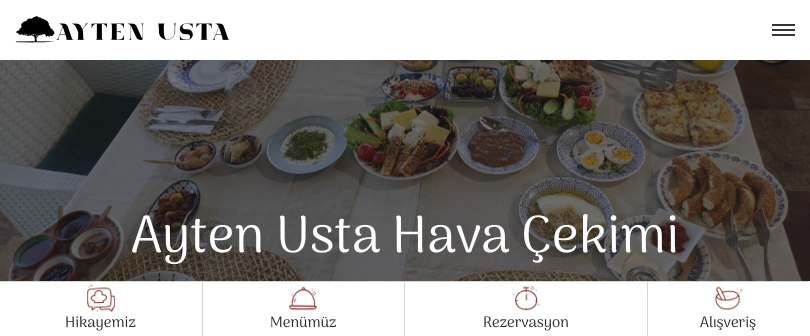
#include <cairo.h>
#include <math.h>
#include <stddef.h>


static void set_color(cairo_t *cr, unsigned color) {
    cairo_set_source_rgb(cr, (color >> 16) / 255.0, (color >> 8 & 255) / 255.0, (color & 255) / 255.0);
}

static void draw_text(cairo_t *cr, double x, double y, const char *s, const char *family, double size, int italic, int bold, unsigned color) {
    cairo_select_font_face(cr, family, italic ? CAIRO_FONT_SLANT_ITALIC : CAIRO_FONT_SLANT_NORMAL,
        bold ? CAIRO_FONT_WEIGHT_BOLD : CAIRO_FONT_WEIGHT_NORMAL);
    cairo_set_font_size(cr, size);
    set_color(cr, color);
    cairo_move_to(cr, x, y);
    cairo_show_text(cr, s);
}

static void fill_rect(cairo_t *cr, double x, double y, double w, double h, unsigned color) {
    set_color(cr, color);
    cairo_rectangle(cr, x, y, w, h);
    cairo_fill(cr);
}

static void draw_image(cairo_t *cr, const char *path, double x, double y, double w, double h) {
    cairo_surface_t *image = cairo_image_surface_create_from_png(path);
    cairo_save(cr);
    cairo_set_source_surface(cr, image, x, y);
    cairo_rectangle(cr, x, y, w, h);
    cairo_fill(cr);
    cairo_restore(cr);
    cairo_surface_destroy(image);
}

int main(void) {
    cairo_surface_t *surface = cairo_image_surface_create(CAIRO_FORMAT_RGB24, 810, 336);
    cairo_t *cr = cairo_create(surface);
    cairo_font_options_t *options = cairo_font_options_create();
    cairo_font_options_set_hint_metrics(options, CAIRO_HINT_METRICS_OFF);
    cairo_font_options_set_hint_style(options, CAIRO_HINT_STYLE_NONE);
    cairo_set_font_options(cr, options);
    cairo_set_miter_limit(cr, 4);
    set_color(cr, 0xFFFFFF);
    cairo_paint(cr);
    draw_image(cr, "assets/img1.png", 0, 60, 810, 221);
    draw_text(cr, 131, 252, "Ayten Usta Hava Çekimi", "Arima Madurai", 52, 0, 0, 0xFFFFFF);
    draw_image(cr, "assets/img2.png", 15, 16, 215, 27);
    fill_rect(cr, 772, 24, 23, 2, 0x333333);
    fill_rect(cr, 772, 29, 23, 2, 0x333333);
    fill_rect(cr, 772, 34, 23, 2, 0x333333);
    fill_rect(cr, 0, 281, 810, 1, 0xDED1D1);
    fill_rect(cr, 202, 281, 1, 55, 0xDED1D1);
    draw_image(cr, "assets/img3.png", 87, 284, 28, 28);
    draw_text(cr, 65, 327, "Hikayemiz", "Arima Madurai", 15, 0, 0, 0x292929);
    fill_rect(cr, 404, 281, 1, 55, 0xDED1D1);
    draw_image(cr, "assets/img4.png", 289, 286, 28, 25);
    draw_text(cr, 270, 327, "Menümüz", "Arima Madurai", 15, 0, 0, 0x292929);
    fill_rect(cr, 647, 281, 1, 55, 0xDED1D1);
    draw_image(cr, "assets/img5.png", 512, 285, 28, 26);
    draw_text(cr, 483, 327, "Rezervasyon", "Arima Madurai", 15, 0, 0, 0x292929);
    fill_rect(cr, 809, 281, 1, 1, 0xFFFFFF);
    draw_image(cr, "assets/img6.png", 715, 286, 28, 25);
    draw_text(cr, 700, 327, "Alışveriş", "Arima Madurai", 15, 0, 0, 0x292929);
    cairo_surface_write_to_png(surface, "output.png");
    cairo_font_options_destroy(options);
    cairo_destroy(cr);
    cairo_surface_destroy(surface);
    return 0;
}
